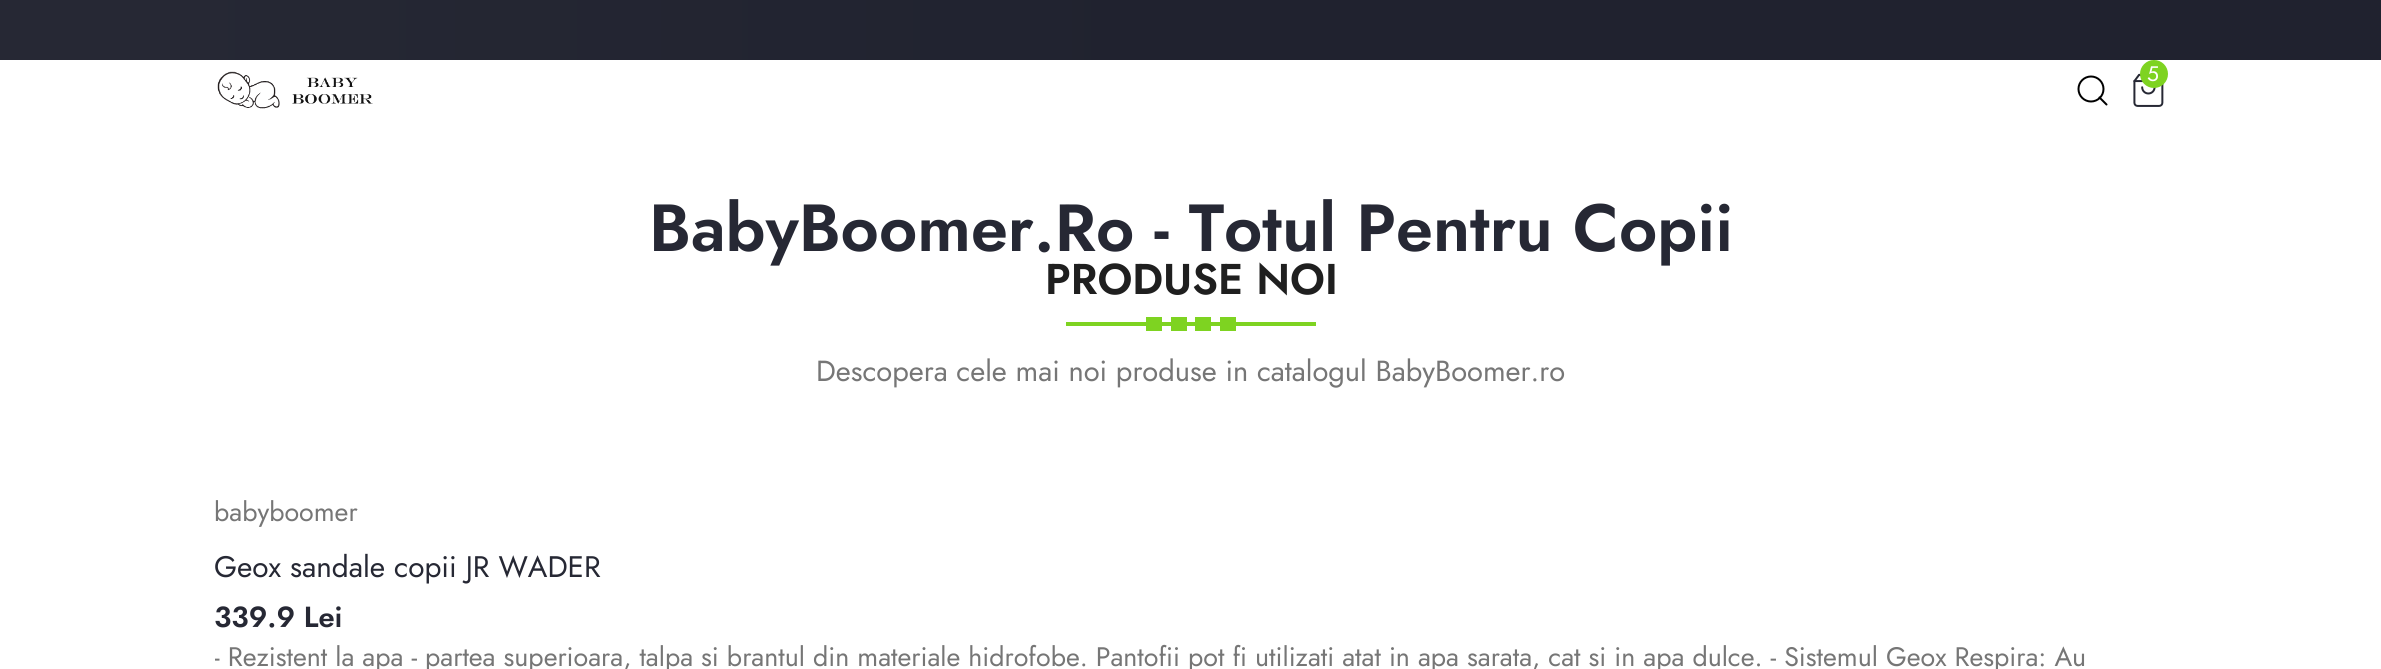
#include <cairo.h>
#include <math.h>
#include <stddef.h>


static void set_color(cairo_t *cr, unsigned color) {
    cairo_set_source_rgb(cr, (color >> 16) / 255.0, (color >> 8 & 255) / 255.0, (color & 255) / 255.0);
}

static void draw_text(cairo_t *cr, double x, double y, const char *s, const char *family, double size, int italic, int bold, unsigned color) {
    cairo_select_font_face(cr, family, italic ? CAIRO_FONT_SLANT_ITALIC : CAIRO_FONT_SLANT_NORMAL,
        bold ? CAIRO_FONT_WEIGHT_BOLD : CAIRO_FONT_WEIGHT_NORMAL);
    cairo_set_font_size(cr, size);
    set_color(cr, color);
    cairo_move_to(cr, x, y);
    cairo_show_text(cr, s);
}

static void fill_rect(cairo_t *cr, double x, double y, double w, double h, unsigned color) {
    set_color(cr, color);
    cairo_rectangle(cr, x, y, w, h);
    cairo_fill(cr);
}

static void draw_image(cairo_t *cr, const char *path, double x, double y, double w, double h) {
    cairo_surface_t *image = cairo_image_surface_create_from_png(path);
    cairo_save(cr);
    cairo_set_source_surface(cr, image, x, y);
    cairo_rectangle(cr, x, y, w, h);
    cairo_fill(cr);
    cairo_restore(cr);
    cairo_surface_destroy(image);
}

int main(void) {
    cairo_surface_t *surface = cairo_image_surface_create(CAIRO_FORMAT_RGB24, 2381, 669);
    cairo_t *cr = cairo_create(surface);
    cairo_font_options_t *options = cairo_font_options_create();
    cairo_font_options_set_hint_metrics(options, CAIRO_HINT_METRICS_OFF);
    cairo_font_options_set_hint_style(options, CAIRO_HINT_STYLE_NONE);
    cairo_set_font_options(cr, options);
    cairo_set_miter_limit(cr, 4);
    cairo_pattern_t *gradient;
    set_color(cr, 0xFFFFFF);
    cairo_paint(cr);
    gradient = cairo_pattern_create_linear(0, 30, 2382, 30);
    cairo_pattern_add_color_stop_rgba(gradient, 0.06, 0.149, 0.157, 0.204, 1);
    cairo_pattern_add_color_stop_rgba(gradient, 0.5, 0.125, 0.133, 0.184, 1);
    cairo_set_source(cr, gradient);
    cairo_pattern_destroy(gradient);
    cairo_rectangle(cr, 0, 0, 2381, 60);
    cairo_fill(cr);
    draw_image(cr, "assets/img1.png", 217, 71, 156, 38);
    cairo_arc(cr, 2091, 89, 12.5, 0, 2 * M_PI);
    set_color(cr, 0x000000);
    cairo_stroke(cr);
    cairo_new_path(cr);
    cairo_move_to(cr, 2106.5, 104.5);
    cairo_line_to(cr, 2099.5, 97.5);
    cairo_set_line_cap(cr, CAIRO_LINE_CAP_ROUND);
    cairo_set_line_join(cr, CAIRO_LINE_JOIN_ROUND);
    cairo_stroke(cr);
    draw_image(cr, "assets/img2.png", 2133, 73, 31, 34);
    set_color(cr, 0x7ED321);
    cairo_arc(cr, 2154, 74, 14, 0, 2 * M_PI);
    cairo_fill(cr);
    draw_text(cr, 2147, 81, "5", "Jost", 21, 0, 0, 0xFFFFFF);
    draw_text(cr, 649, 251, "BabyBoomer.Ro - Totul Pentru Copii", "Jost SemiBold", 66.5, 0, 0, 0x262834);
    draw_text(cr, 1045, 294, "PRODUSE NOI", "Jost SemiBold", 43, 0, 0, 0x1F1F1F);
    fill_rect(cr, 1066, 322, 250, 4, 0x7ED321);
    fill_rect(cr, 1171, 317, 16, 14, 0x7ED321);
    fill_rect(cr, 1146, 317, 16, 14, 0x7ED321);
    fill_rect(cr, 1195, 317, 16, 14, 0x7ED321);
    fill_rect(cr, 1220, 317, 16, 14, 0x7ED321);
    draw_text(cr, 816, 381, "Descopera cele mai noi produse in catalogul BabyBoomer.ro", "Jost", 29.05, 0, 0, 0x767676);
    draw_text(cr, 214, 521, "babyboomer", "Jost", 26.78, 0, 0, 0x767676);
    draw_text(cr, 214, 577, "Geox sandale copii JR WADER", "Jost", 29.7, 0, 0, 0x262834);
    draw_text(cr, 214, 627, "339.9 Lei", "Jost SemiBold", 29.05, 0, 0, 0x262834);
    cairo_save(cr);
    cairo_rectangle(cr, 215, 641, 1953, 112);
    cairo_clip(cr);
    draw_text(cr, 214, 666, "- Rezistent la apa - partea superioara, talpa si brantul din materiale hidrofobe. Pantofii pot fi utilizati atat in apa sarata, cat si in apa dulce. - Sistemul Geox Respira: Au", "Jost", 26.78, 0, 0, 0x767676);
    cairo_restore(cr);
    cairo_surface_write_to_png(surface, "output.png");
    cairo_font_options_destroy(options);
    cairo_destroy(cr);
    cairo_surface_destroy(surface);
    return 0;
}
